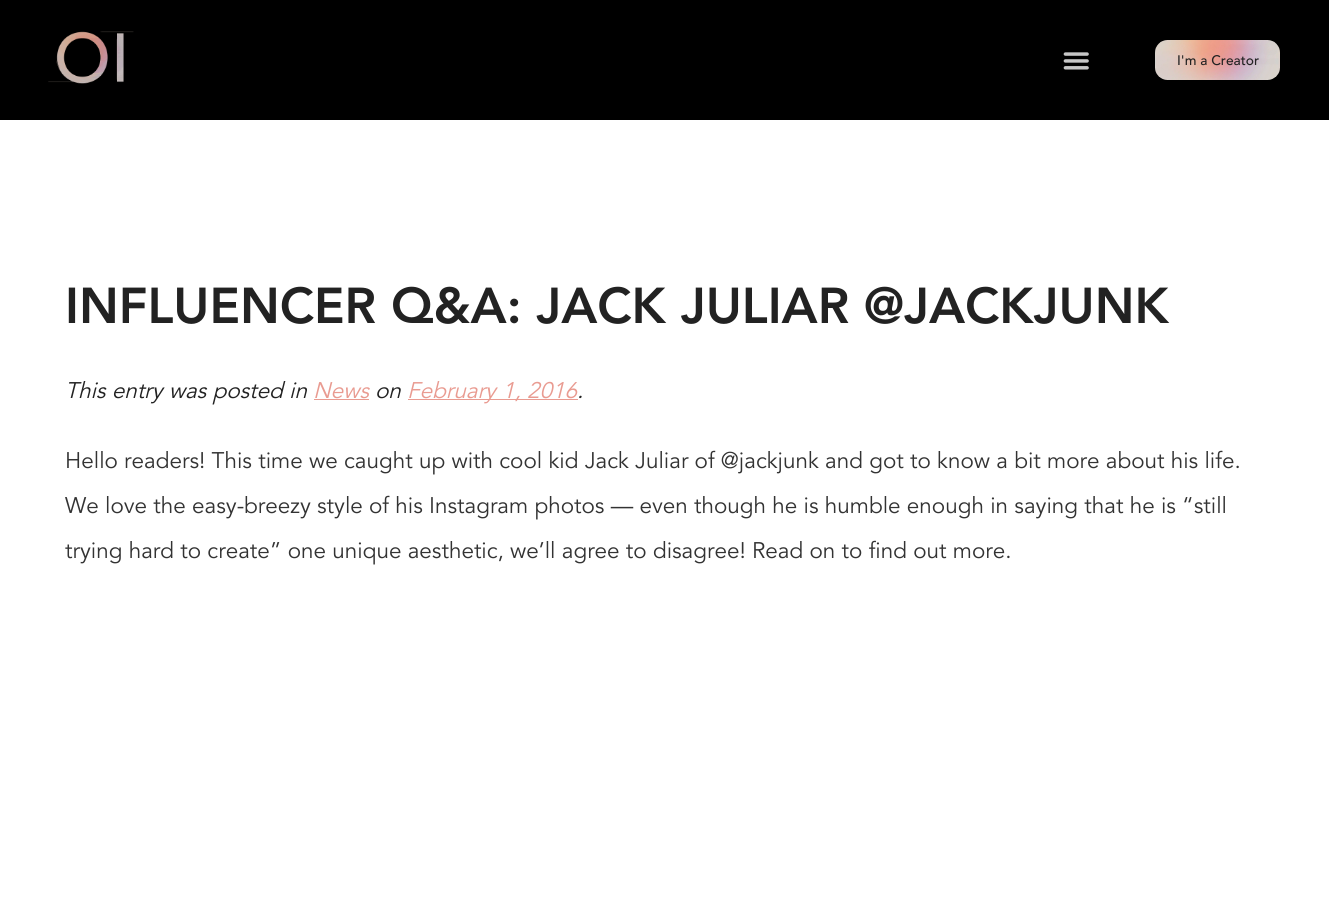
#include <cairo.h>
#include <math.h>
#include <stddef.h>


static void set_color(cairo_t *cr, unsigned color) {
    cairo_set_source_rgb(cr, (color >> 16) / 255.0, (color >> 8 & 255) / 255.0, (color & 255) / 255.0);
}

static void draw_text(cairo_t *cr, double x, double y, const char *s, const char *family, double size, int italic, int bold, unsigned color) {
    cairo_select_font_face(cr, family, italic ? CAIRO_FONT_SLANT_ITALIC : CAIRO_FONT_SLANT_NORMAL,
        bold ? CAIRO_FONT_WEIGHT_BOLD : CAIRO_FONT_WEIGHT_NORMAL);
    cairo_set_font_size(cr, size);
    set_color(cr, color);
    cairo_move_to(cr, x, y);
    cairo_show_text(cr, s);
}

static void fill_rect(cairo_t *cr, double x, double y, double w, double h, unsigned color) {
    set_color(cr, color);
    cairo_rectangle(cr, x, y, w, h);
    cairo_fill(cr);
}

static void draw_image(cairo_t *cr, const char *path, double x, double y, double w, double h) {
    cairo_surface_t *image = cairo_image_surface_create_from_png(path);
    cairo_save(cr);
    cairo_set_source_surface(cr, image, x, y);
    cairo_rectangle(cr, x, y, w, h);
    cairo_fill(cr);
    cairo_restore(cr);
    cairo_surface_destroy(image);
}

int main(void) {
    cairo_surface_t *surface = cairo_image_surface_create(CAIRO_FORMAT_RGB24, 1329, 898);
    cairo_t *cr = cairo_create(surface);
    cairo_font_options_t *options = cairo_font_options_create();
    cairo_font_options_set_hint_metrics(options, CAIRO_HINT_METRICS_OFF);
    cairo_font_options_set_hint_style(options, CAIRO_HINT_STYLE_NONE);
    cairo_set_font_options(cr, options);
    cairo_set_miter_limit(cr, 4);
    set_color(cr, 0xFFFFFF);
    cairo_paint(cr);
    fill_rect(cr, 0, 0, 1329, 120, 0x000000);
    draw_image(cr, "assets/img1.png", 48, 31, 86, 53);
    draw_image(cr, "assets/img2.png", 1063, 52, 26, 18);
    draw_image(cr, "assets/img3.png", 1155, 40, 125, 40);
    draw_text(cr, 1177, 65, "I'm a Creator", "Avenir Medium", 13.75, 0, 0, 0x222222);
    draw_text(cr, 65, 323, "INFLUENCER Q&A: JACK JULIAR @JACKJUNK", "Avenir Black", 50, 0, 0, 0x222222);
    draw_text(cr, 65, 398, "This entry was posted in", "Avenir", 22.5, 1, 0, 0x222222);
    draw_text(cr, 313, 398, "News", "Avenir", 22.5, 1, 0, 0xE99B91);
    fill_rect(cr, 314, 399, 55, 1, 0xE99B91);
    draw_text(cr, 375, 398, "on", "Avenir", 22.5, 1, 0, 0x222222);
    fill_rect(cr, 408, 399, 170, 1, 0xE99B91);
    draw_text(cr, 407, 398, "February 1, 2016", "Avenir", 22.5, 1, 0, 0xE99B91);
    draw_text(cr, 577, 398, ".", "Avenir", 22.5, 1, 0, 0x222222);
    draw_text(cr, 65, 468, "Hello readers! This time we caught up with cool kid Jack Juliar of @jackjunk and got to know a bit more about his life.", "Avenir", 22.5, 0, 0, 0x333333);
    draw_text(cr, 65, 513, "We love the easy-breezy style of his Instagram photos — even though he is humble enough in saying that he is “still", "Avenir", 22.5, 0, 0, 0x333333);
    draw_text(cr, 65, 558, "trying hard to create” one unique aesthetic, we’ll agree to disagree! Read on to find out more.", "Avenir", 22.5, 0, 0, 0x333333);
    cairo_surface_write_to_png(surface, "output.png");
    cairo_font_options_destroy(options);
    cairo_destroy(cr);
    cairo_surface_destroy(surface);
    return 0;
}
